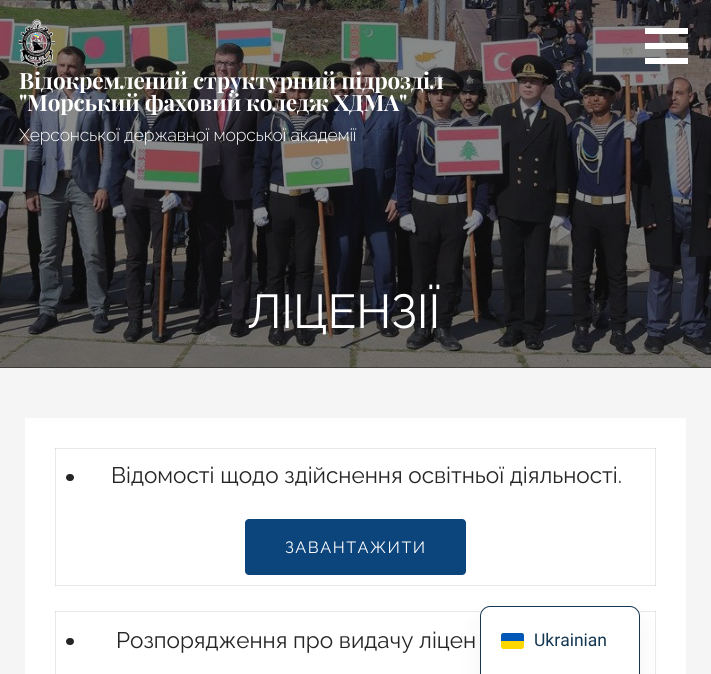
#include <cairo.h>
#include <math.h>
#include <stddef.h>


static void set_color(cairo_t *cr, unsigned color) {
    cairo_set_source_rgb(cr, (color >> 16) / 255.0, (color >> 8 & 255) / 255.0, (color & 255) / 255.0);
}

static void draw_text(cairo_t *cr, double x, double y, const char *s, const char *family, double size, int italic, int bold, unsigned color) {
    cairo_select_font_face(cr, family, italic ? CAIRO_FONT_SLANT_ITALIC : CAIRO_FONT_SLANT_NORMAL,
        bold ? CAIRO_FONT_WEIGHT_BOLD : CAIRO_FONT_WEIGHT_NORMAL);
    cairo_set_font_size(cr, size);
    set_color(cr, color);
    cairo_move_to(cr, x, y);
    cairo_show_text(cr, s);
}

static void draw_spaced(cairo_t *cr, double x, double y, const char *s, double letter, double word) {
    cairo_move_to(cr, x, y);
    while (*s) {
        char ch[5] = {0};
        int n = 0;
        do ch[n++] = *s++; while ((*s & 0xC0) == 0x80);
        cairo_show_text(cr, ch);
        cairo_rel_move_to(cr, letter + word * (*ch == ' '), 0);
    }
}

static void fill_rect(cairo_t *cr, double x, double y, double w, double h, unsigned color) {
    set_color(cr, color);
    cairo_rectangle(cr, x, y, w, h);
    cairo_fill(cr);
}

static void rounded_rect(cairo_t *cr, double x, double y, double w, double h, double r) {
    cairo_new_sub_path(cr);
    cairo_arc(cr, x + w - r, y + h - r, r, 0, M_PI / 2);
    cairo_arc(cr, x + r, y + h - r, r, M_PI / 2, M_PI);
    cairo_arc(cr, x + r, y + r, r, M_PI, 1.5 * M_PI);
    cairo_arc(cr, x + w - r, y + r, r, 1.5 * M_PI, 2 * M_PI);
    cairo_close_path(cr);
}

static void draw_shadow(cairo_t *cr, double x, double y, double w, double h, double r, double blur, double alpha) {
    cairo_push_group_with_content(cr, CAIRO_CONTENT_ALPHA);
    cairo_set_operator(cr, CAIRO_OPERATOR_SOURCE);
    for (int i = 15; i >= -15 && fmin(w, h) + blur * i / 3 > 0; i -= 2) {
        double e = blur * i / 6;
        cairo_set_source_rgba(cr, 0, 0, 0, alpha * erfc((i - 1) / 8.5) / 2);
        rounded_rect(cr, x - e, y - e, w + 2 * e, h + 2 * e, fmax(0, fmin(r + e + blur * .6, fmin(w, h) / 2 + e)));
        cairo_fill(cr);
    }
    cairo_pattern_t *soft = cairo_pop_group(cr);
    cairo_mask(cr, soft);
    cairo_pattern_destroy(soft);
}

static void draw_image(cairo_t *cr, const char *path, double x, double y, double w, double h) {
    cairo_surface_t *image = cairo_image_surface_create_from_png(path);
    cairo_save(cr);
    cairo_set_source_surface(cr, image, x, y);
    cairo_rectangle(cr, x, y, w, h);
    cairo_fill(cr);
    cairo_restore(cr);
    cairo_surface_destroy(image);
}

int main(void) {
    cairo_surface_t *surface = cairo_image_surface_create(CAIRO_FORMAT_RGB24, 711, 674);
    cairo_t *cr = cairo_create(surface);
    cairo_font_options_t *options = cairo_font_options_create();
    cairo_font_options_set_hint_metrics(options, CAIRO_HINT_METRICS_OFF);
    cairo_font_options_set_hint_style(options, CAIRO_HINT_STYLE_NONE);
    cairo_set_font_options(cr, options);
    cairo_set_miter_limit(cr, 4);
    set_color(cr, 0xF5F5F5);
    cairo_paint(cr);
    fill_rect(cr, 0, 367, 711, 1, 0x141414);
    draw_image(cr, "assets/img1.png", 0, 0, 711, 368);
    fill_rect(cr, 645, 28, 43, 6, 0xFFFFFF);
    fill_rect(cr, 645, 43, 43, 6, 0xFFFFFF);
    fill_rect(cr, 645, 58, 43, 6, 0xFFFFFF);
    draw_image(cr, "assets/img2.png", 18, 19, 37, 49);
    cairo_select_font_face(cr, "Playfair Display", CAIRO_FONT_SLANT_NORMAL, CAIRO_FONT_WEIGHT_BOLD);
    cairo_set_font_size(cr, 22.5);
    draw_spaced(cr, 19, 89, "Відокремлений структурний підрозділ", -0.2, 0);
    draw_spaced(cr, 19, 111, "\"Морський фаховий коледж ХДМА\"", -0.2, 0);
    cairo_select_font_face(cr, "Raleway Light", CAIRO_FONT_SLANT_NORMAL, CAIRO_FONT_WEIGHT_NORMAL);
    cairo_set_font_size(cr, 17.5);
    draw_spaced(cr, 19, 141, "Херсонської державної морської академії", -0.2, 0);
    cairo_select_font_face(cr, "Raleway", CAIRO_FONT_SLANT_NORMAL, CAIRO_FONT_WEIGHT_NORMAL);
    cairo_set_font_size(cr, 47.5);
    draw_spaced(cr, 247, 328, "ЛІЦЕНЗІЇ", -0.2, 0);
    fill_rect(cr, 25, 418, 661, 256, 0xFFFFFF);
    fill_rect(cr, 55, 611, 1, 63, 0xE9E9E9);
    fill_rect(cr, 655, 611, 1, 63, 0xE9E9E9);
    fill_rect(cr, 55, 448, 1, 138, 0xE9E9E9);
    fill_rect(cr, 55, 585, 601, 1, 0xE9E9E9);
    fill_rect(cr, 55, 585, 1, 1, 0xD5D5D5);
    fill_rect(cr, 655, 448, 1, 138, 0xE9E9E9);
    fill_rect(cr, 655, 585, 1, 1, 0xD5D5D5);
    fill_rect(cr, 55, 448, 601, 1, 0xE9E9E9);
    fill_rect(cr, 55, 448, 1, 1, 0xD5D5D5);
    fill_rect(cr, 655, 448, 1, 1, 0xD5D5D5);
    set_color(cr, 0x252525);
    rounded_rect(cr, 66, 474, 8, 7, 3.5);
    cairo_fill(cr);
    draw_text(cr, 111, 483, "Відомості щодо здійснення освітньої діяльності.", "Raleway", 22.5, 0, 0, 0x252525);
    set_color(cr, 0x0C447C);
    rounded_rect(cr, 245, 519, 221, 56, 4);
    cairo_fill(cr);
    cairo_set_font_size(cr, 16.25);
    set_color(cr, 0xFFFFFF);
    draw_spaced(cr, 285, 553, "ЗАВАНТАЖИТИ", 1.5, 0);
    fill_rect(cr, 55, 611, 601, 1, 0xE9E9E9);
    fill_rect(cr, 55, 611, 1, 1, 0xD5D5D5);
    fill_rect(cr, 655, 611, 1, 1, 0xD5D5D5);
    set_color(cr, 0x252525);
    rounded_rect(cr, 66, 638, 8, 7, 3.5);
    cairo_fill(cr);
    draw_text(cr, 116, 648, "Розпорядження про видачу ліцен", "Raleway", 22.5, 0, 0, 0x252525);
    set_color(cr, 0x000000);
    draw_shadow(cr, 480, 619, 160, 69, 10, 12.5, 0.05);
    set_color(cr, 0xFFFFFF);
    cairo_new_path(cr);
    cairo_move_to(cr, 490, 606.5);
    cairo_line_to(cr, 630, 606.5);
    cairo_curve_to(cr, 635, 606.5, 639.5, 611, 639.5, 616);
    cairo_line_to(cr, 639.5, 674.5);
    cairo_line_to(cr, 480.5, 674.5);
    cairo_line_to(cr, 480.5, 616);
    cairo_curve_to(cr, 480.5, 611, 485, 606.5, 490, 606.5);
    cairo_close_path(cr);
    cairo_fill_preserve(cr);
    set_color(cr, 0x143852);
    cairo_set_line_width(cr, 1);
    cairo_stroke(cr);
    set_color(cr, 0xFFD700);
    rounded_rect(cr, 501, 633, 23, 16, 2.5);
    cairo_fill(cr);
    set_color(cr, 0x0057B8);
    cairo_new_path(cr);
    cairo_move_to(cr, 503.5, 633);
    cairo_line_to(cr, 521.5, 633);
    cairo_curve_to(cr, 523, 633, 524, 634, 524, 635.5);
    cairo_line_to(cr, 524, 641);
    cairo_line_to(cr, 501, 641);
    cairo_line_to(cr, 501, 635.5);
    cairo_curve_to(cr, 501, 634, 502, 633, 503.5, 633);
    cairo_close_path(cr);
    cairo_fill(cr);
    draw_text(cr, 534, 646, "Ukrainian", "Roboto", 17.5, 0, 0, 0x143852);
    cairo_surface_write_to_png(surface, "output.png");
    cairo_font_options_destroy(options);
    cairo_destroy(cr);
    cairo_surface_destroy(surface);
    return 0;
}
